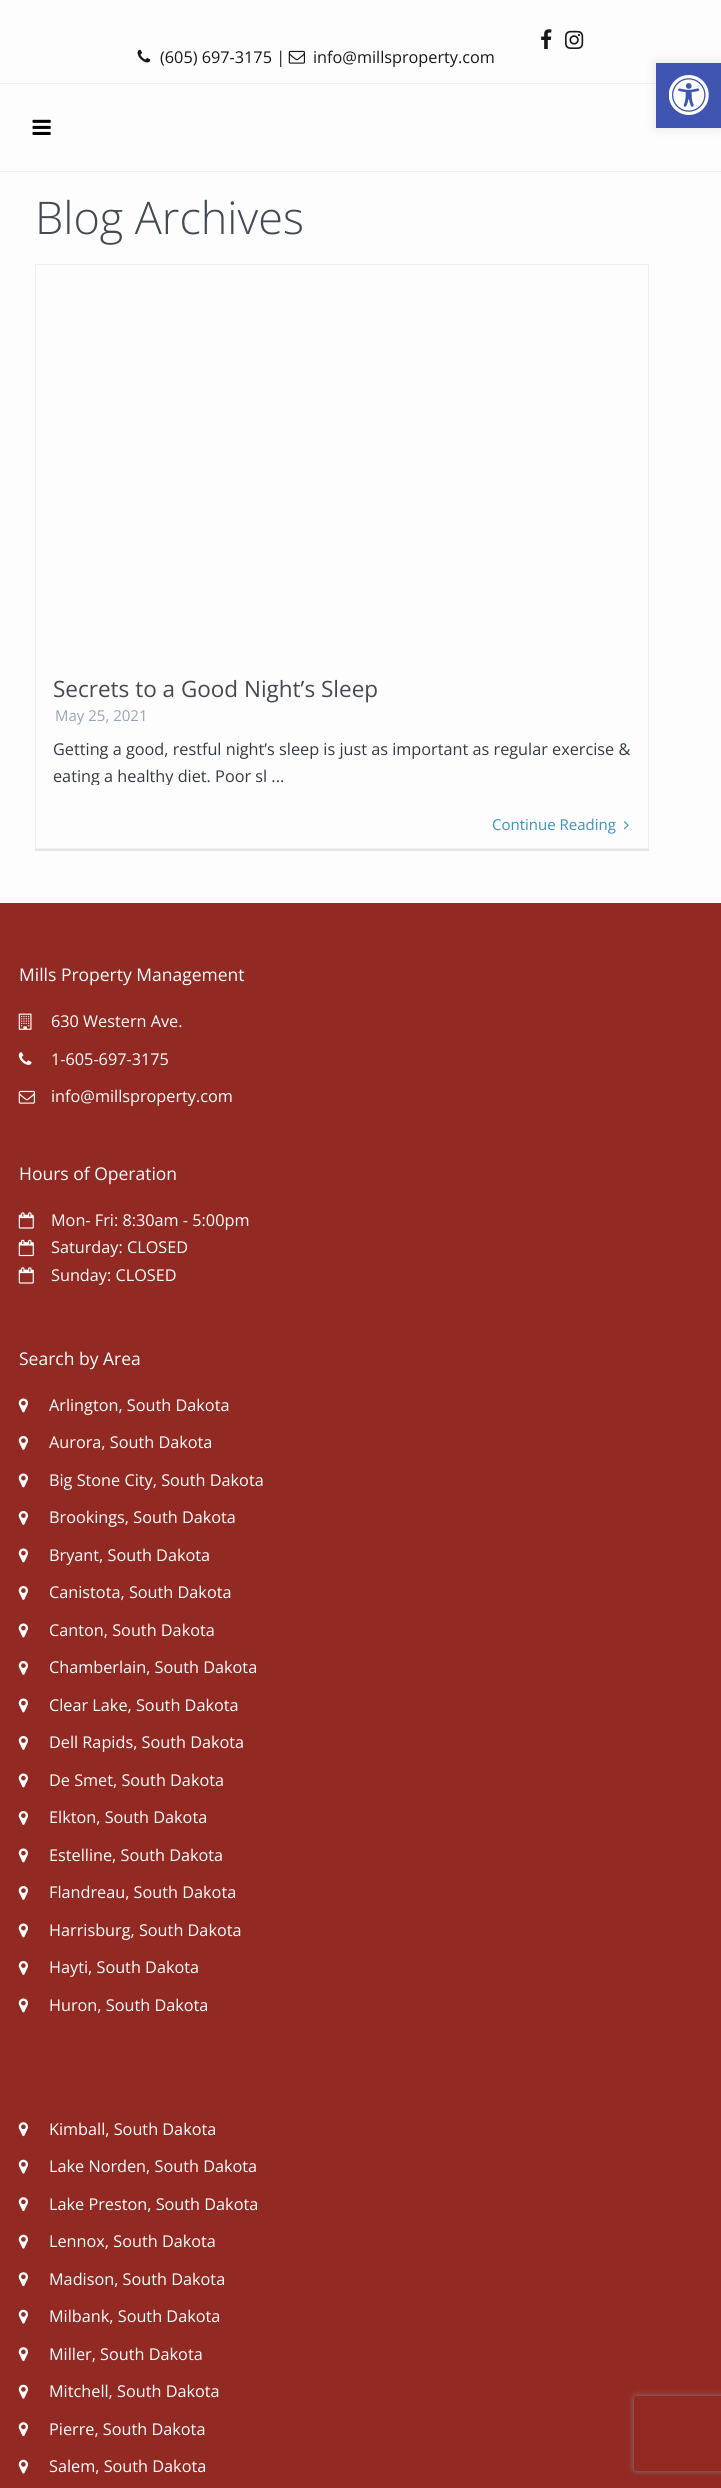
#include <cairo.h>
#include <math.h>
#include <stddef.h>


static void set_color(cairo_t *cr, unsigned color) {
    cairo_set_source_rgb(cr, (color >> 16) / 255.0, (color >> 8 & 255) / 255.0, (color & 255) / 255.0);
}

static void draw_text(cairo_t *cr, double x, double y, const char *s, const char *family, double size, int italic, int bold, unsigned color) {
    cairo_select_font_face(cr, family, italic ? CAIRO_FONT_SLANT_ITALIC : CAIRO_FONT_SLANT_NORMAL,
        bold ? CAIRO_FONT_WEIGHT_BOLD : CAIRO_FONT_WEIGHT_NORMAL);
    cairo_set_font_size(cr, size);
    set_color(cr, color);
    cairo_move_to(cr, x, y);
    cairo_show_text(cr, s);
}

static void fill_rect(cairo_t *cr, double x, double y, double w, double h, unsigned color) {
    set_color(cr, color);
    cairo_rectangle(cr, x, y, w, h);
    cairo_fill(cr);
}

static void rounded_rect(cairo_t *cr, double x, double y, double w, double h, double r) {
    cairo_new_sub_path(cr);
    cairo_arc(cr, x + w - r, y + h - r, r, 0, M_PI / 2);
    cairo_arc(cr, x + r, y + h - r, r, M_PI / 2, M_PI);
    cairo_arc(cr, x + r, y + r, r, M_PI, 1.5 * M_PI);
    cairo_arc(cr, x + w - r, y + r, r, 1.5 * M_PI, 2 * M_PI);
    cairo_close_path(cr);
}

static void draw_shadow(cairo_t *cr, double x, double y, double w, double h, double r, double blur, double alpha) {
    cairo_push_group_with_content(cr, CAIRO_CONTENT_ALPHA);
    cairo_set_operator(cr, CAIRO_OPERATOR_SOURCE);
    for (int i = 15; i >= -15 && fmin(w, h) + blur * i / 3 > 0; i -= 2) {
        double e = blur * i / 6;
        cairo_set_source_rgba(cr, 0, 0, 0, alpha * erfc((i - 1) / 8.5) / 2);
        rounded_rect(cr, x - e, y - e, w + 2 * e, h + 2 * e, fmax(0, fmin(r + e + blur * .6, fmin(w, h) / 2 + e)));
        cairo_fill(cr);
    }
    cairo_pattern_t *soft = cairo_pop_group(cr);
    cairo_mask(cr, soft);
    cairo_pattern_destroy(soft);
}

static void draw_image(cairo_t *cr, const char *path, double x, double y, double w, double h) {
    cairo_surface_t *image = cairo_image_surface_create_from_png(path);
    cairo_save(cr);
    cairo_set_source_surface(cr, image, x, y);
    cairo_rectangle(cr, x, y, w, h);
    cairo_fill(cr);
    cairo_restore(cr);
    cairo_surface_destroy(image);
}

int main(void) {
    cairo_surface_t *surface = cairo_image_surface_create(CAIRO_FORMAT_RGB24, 721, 2488);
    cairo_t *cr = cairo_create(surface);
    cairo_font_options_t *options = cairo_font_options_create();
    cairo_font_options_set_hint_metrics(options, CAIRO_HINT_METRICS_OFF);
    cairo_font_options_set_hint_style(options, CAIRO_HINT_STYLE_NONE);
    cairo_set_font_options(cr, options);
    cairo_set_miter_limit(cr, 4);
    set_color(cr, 0xFDFDFD);
    cairo_paint(cr);
    fill_rect(cr, 0, 171, 721, 1, 0xF0F0F0);
    fill_rect(cr, 0, 83, 656, 1, 0xF0F0F0);
    draw_image(cr, "assets/img1.png", 541, 29, 11, 20);
    draw_image(cr, "assets/img2.png", 565, 30, 19, 19);
    draw_image(cr, "assets/img3.png", 137, 49, 14, 14);
    draw_text(cr, 160, 63, "(605) 697-3175 |", "Open Sans", 16.25, 0, 0, 0x1A171B);
    draw_image(cr, "assets/img4.png", 288, 50, 17, 14);
    draw_text(cr, 313, 63, "info@millsproperty.com", "Open Sans", 16.25, 0, 0, 0x1A171B);
    draw_image(cr, "assets/img5.png", 32, 119, 19, 16);
    set_color(cr, 0x000000);
    draw_shadow(cr, 656, 63, 65, 65, 0, 6, 0.1);
    fill_rect(cr, 656, 63, 65, 65, 0x4054B2);
    draw_image(cr, "assets/img6.png", 669, 75, 40, 40);
    draw_text(cr, 35, 234, "Blog Archives", "Open Sans Light", 45, 0, 0, 0x434A54);
    set_color(cr, 0xE3E4E7);
    cairo_new_path(cr);
    cairo_move_to(cr, 35, 849);
    cairo_line_to(cr, 35, 851);
    cairo_line_to(cr, 649, 851);
    cairo_line_to(cr, 649, 266);
    cairo_line_to(cr, 649, 849);
    cairo_close_path(cr);
    cairo_fill(cr);
    cairo_rectangle(cr, 35.5, 264.5, 613, 584);
    set_color(cr, 0xF0F0F0);
    cairo_set_line_width(cr, 1);
    cairo_stroke(cr);
    draw_text(cr, 53, 697, "Secrets to a Good Night’s Sleep", "Open Sans", 22.5, 0, 0, 0x434A54);
    draw_text(cr, 55, 721, "May 25, 2021", "Open Sans", 15, 0, 0, 0x99A3B1);
    draw_text(cr, 53, 755, "Getting a good, restful night’s sleep is just as important as regular exercise &", "Open Sans", 16.25, 0, 0, 0x343A42);
    cairo_save(cr);
    cairo_rectangle(cr, 36, 735, 612, 50);
    cairo_clip(cr);
    draw_text(cr, 53, 782, "eating a healthy diet. Poor sl ...", "Open Sans", 16.25, 0, 0, 0x343A42);
    cairo_restore(cr);
    draw_text(cr, 492, 830, "Continue Reading", "Open Sans", 15, 0, 0, 0x3C90BE);
    draw_image(cr, "assets/img7.png", 623, 821, 6, 9);
    fill_rect(cr, 0, 903, 721, 1585, 0x932923);
    draw_text(cr, 19, 981, "Mills Property Management", "Open Sans", 17.5, 0, 0, 0xFFFFFF);
    draw_image(cr, "assets/img8.png", 18, 1013, 14, 17);
    draw_text(cr, 51, 1027, "630 Western Ave.", "Open Sans", 16.25, 0, 0, 0xFFFFFF);
    draw_image(cr, "assets/img9.png", 18, 1052, 14, 13);
    draw_text(cr, 51, 1065, "1-605-697-3175", "Open Sans", 16.25, 0, 0, 0xFFFFFF);
    draw_image(cr, "assets/img10.png", 18, 1090, 17, 14);
    draw_text(cr, 51, 1102, "info@millsproperty.com", "Open Sans", 16.25, 0, 0, 0xFFFFFF);
    draw_text(cr, 19, 1180, "Hours of Operation", "Open Sans", 17.5, 0, 0, 0xFFFFFF);
    draw_image(cr, "assets/img11.png", 18, 1212, 16, 17);
    draw_text(cr, 51, 1226, "Mon- Fri: 8:30am - 5:00pm", "Open Sans", 16.25, 0, 0, 0xFFFFFF);
    draw_image(cr, "assets/img12.png", 18, 1239, 16, 18);
    draw_text(cr, 51, 1253, "Saturday: CLOSED", "Open Sans", 16.25, 0, 0, 0xFFFFFF);
    draw_image(cr, "assets/img11.png", 18, 1267, 16, 17);
    draw_text(cr, 51, 1281, "Sunday: CLOSED", "Open Sans", 16.25, 0, 0, 0xFFFFFF);
    draw_text(cr, 19, 1365, "Search by Area", "Open Sans", 17.5, 0, 0, 0xFFFFFF);
    draw_image(cr, "assets/img13.png", 18, 1398, 10, 15);
    draw_text(cr, 49, 1411, "Arlington, South Dakota", "Open Sans", 16.25, 0, 0, 0xFFFFFF);
    draw_image(cr, "assets/img14.png", 18, 1436, 10, 14);
    draw_text(cr, 49, 1448, "Aurora, South Dakota", "Open Sans", 16.25, 0, 0, 0xFFFFFF);
    draw_image(cr, "assets/img13.png", 18, 1473, 10, 15);
    draw_text(cr, 49, 1486, "Big Stone City, South Dakota", "Open Sans", 16.25, 0, 0, 0xFFFFFF);
    draw_image(cr, "assets/img14.png", 18, 1511, 10, 14);
    draw_text(cr, 49, 1523, "Brookings, South Dakota", "Open Sans", 16.25, 0, 0, 0xFFFFFF);
    draw_image(cr, "assets/img13.png", 18, 1548, 10, 15);
    draw_text(cr, 49, 1561, "Bryant, South Dakota", "Open Sans", 16.25, 0, 0, 0xFFFFFF);
    draw_image(cr, "assets/img14.png", 18, 1586, 10, 14);
    draw_text(cr, 49, 1598, "Canistota, South Dakota", "Open Sans", 16.25, 0, 0, 0xFFFFFF);
    draw_image(cr, "assets/img13.png", 18, 1623, 10, 15);
    draw_text(cr, 49, 1636, "Canton, South Dakota", "Open Sans", 16.25, 0, 0, 0xFFFFFF);
    draw_image(cr, "assets/img14.png", 18, 1661, 10, 14);
    draw_text(cr, 49, 1673, "Chamberlain, South Dakota", "Open Sans", 16.25, 0, 0, 0xFFFFFF);
    draw_image(cr, "assets/img13.png", 18, 1698, 10, 15);
    draw_text(cr, 49, 1711, "Clear Lake, South Dakota", "Open Sans", 16.25, 0, 0, 0xFFFFFF);
    draw_image(cr, "assets/img14.png", 18, 1736, 10, 14);
    draw_text(cr, 49, 1748, "Dell Rapids, South Dakota", "Open Sans", 16.25, 0, 0, 0xFFFFFF);
    draw_image(cr, "assets/img13.png", 18, 1773, 10, 15);
    draw_text(cr, 49, 1786, "De Smet, South Dakota", "Open Sans", 16.25, 0, 0, 0xFFFFFF);
    draw_image(cr, "assets/img14.png", 18, 1811, 10, 14);
    draw_text(cr, 49, 1823, "Elkton, South Dakota", "Open Sans", 16.25, 0, 0, 0xFFFFFF);
    draw_image(cr, "assets/img13.png", 18, 1848, 10, 15);
    draw_text(cr, 49, 1861, "Estelline, South Dakota", "Open Sans", 16.25, 0, 0, 0xFFFFFF);
    draw_image(cr, "assets/img14.png", 18, 1886, 10, 14);
    draw_text(cr, 49, 1898, "Flandreau, South Dakota", "Open Sans", 16.25, 0, 0, 0xFFFFFF);
    draw_image(cr, "assets/img13.png", 18, 1923, 10, 15);
    draw_text(cr, 49, 1936, "Harrisburg, South Dakota", "Open Sans", 16.25, 0, 0, 0xFFFFFF);
    draw_image(cr, "assets/img14.png", 18, 1961, 10, 14);
    draw_text(cr, 49, 1973, "Hayti, South Dakota", "Open Sans", 16.25, 0, 0, 0xFFFFFF);
    draw_image(cr, "assets/img13.png", 18, 1998, 10, 15);
    draw_text(cr, 49, 2011, "Huron, South Dakota", "Open Sans", 16.25, 0, 0, 0xFFFFFF);
    draw_image(cr, "assets/img15.png", 18, 2122, 10, 15);
    draw_text(cr, 49, 2135, "Kimball, South Dakota", "Open Sans", 16.25, 0, 0, 0xFFFFFF);
    draw_image(cr, "assets/img16.png", 18, 2159, 10, 15);
    draw_text(cr, 49, 2172, "Lake Norden, South Dakota", "Open Sans", 16.25, 0, 0, 0xFFFFFF);
    draw_image(cr, "assets/img15.png", 18, 2197, 10, 15);
    draw_text(cr, 49, 2210, "Lake Preston, South Dakota", "Open Sans", 16.25, 0, 0, 0xFFFFFF);
    draw_image(cr, "assets/img16.png", 18, 2234, 10, 15);
    draw_text(cr, 49, 2247, "Lennox, South Dakota", "Open Sans", 16.25, 0, 0, 0xFFFFFF);
    draw_image(cr, "assets/img15.png", 18, 2272, 10, 15);
    draw_text(cr, 49, 2285, "Madison, South Dakota", "Open Sans", 16.25, 0, 0, 0xFFFFFF);
    draw_image(cr, "assets/img16.png", 18, 2309, 10, 15);
    draw_text(cr, 49, 2322, "Milbank, South Dakota", "Open Sans", 16.25, 0, 0, 0xFFFFFF);
    draw_image(cr, "assets/img15.png", 18, 2347, 10, 15);
    draw_text(cr, 49, 2360, "Miller, South Dakota", "Open Sans", 16.25, 0, 0, 0xFFFFFF);
    draw_image(cr, "assets/img16.png", 18, 2384, 10, 15);
    draw_text(cr, 49, 2397, "Mitchell, South Dakota", "Open Sans", 16.25, 0, 0, 0xFFFFFF);
    draw_image(cr, "assets/img15.png", 18, 2422, 10, 15);
    draw_text(cr, 49, 2435, "Pierre, South Dakota", "Open Sans", 16.25, 0, 0, 0xFFFFFF);
    draw_image(cr, "assets/img16.png", 18, 2459, 10, 15);
    draw_text(cr, 49, 2472, "Salem, South Dakota", "Open Sans", 16.25, 0, 0, 0xFFFFFF);
    cairo_save(cr);
    cairo_set_fill_rule(cr, CAIRO_FILL_RULE_EVEN_ODD);
    cairo_new_path(cr);
    cairo_move_to(cr, 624, 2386);
    cairo_line_to(cr, 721, 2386);
    cairo_line_to(cr, 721, 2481);
    cairo_line_to(cr, 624, 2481);
    cairo_close_path(cr);
    cairo_move_to(cr, 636.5, 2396);
    cairo_line_to(cr, 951.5, 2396);
    cairo_curve_to(cr, 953, 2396, 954, 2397, 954, 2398.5);
    cairo_line_to(cr, 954, 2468.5);
    cairo_curve_to(cr, 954, 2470, 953, 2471, 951.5, 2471);
    cairo_line_to(cr, 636.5, 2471);
    cairo_curve_to(cr, 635, 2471, 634, 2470, 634, 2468.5);
    cairo_line_to(cr, 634, 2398.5);
    cairo_curve_to(cr, 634, 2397, 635, 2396, 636.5, 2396);
    cairo_close_path(cr);
    cairo_clip(cr);
    set_color(cr, 0x808080);
    draw_shadow(cr, 634, 2396, 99, 75, 2.5, 3, 1);
    cairo_restore(cr);
    cairo_surface_write_to_png(surface, "output.png");
    cairo_font_options_destroy(options);
    cairo_destroy(cr);
    cairo_surface_destroy(surface);
    return 0;
}
